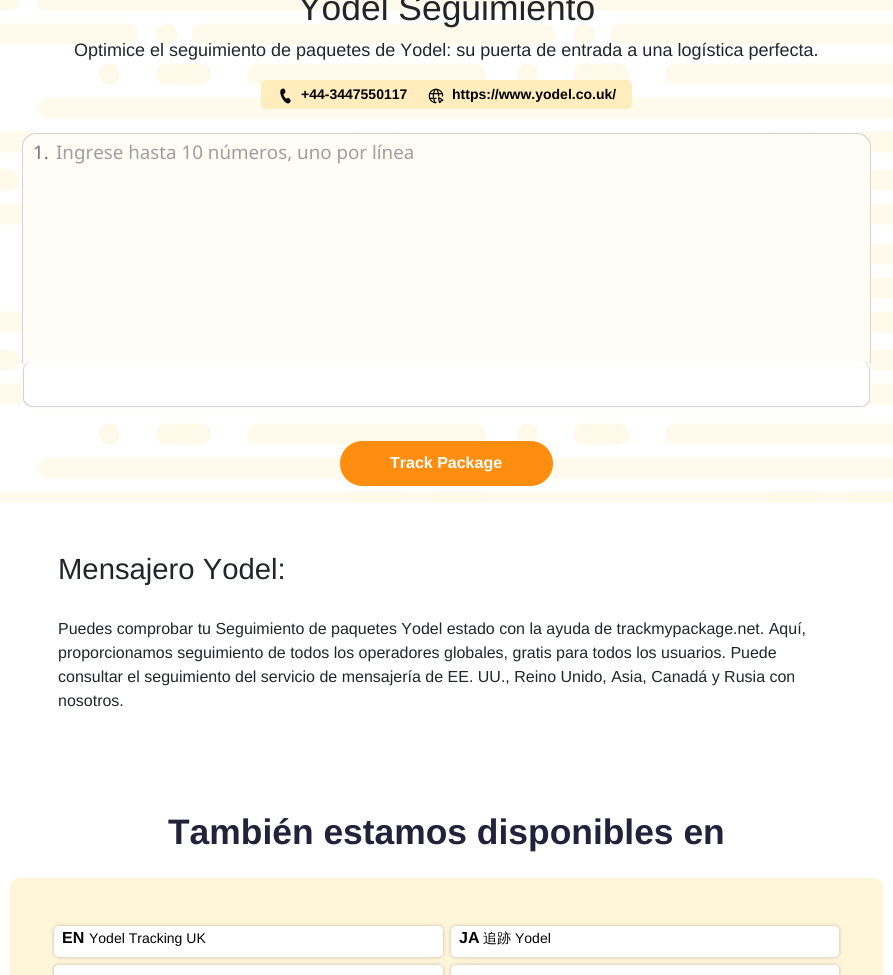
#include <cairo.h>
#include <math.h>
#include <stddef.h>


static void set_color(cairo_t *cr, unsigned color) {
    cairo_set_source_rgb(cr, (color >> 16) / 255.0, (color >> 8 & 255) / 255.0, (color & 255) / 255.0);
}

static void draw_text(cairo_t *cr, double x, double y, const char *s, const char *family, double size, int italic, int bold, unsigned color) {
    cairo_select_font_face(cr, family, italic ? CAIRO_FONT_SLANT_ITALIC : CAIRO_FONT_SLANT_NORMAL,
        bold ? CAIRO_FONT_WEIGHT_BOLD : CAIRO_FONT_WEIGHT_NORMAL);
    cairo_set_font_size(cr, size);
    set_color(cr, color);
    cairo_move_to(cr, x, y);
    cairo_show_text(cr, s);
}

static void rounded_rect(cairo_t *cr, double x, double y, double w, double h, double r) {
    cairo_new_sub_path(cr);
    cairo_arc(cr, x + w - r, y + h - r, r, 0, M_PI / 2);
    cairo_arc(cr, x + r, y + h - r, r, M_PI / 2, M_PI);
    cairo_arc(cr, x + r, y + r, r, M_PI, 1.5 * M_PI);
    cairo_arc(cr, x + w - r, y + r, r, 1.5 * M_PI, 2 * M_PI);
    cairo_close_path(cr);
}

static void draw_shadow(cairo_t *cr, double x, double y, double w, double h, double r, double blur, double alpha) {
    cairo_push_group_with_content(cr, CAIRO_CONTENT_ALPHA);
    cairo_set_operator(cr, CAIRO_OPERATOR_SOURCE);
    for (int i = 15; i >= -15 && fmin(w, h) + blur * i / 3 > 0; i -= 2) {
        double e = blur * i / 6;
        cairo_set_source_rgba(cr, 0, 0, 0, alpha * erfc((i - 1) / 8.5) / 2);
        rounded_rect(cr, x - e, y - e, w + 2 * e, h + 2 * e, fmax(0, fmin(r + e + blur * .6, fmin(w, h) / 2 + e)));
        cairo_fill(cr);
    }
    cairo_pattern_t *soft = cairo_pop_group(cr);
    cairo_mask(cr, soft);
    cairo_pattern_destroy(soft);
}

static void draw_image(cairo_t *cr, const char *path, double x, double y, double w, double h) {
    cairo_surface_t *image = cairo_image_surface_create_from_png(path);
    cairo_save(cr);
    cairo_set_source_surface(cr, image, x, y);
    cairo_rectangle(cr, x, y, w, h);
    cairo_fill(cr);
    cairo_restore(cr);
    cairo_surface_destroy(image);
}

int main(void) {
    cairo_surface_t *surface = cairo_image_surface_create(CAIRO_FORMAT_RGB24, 893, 975);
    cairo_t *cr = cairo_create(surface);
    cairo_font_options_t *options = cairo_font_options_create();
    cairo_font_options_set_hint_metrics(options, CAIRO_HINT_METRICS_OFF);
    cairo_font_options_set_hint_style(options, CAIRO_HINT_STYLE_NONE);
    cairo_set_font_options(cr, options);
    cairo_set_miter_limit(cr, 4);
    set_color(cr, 0xFFFFFF);
    cairo_paint(cr);
    draw_image(cr, "assets/img1.png", 0, 0, 893, 502);
    draw_text(cr, 298, 20, "Yodel Seguimiento", "Liberation Sans", 35.4, 0, 0, 0x212529);
    draw_text(cr, 74, 56, "Optimice el seguimiento de paquetes de Yodel: su puerta de entrada a una logística perfecta.", "Liberation Sans", 18, 0, 0, 0x212529);
    set_color(cr, 0xFFEDBE);
    rounded_rect(cr, 261, 80, 371, 29, 5);
    cairo_fill(cr);
    draw_image(cr, "assets/img2.png", 280, 88, 11, 16);
    draw_text(cr, 301, 99, "+44-3447550117", "Liberation Sans", 14, 0, 1, 0x000000);
    draw_image(cr, "assets/img3.png", 428, 88, 16, 16);
    draw_text(cr, 452, 99, "https://www.yodel.co.uk/", "Liberation Sans", 14, 0, 1, 0x000000);
    set_color(cr, 0xFFFCF5);
    rounded_rect(cr, 22, 133, 849, 276, 14);
    cairo_fill(cr);
    set_color(cr, 0xD3D3D3);
    cairo_set_fill_rule(cr, CAIRO_FILL_RULE_EVEN_ODD);
    cairo_new_path(cr);
    cairo_move_to(cr, 36, 133);
    cairo_line_to(cr, 857, 133);
    cairo_curve_to(cr, 865, 133, 871, 139, 871, 147);
    cairo_line_to(cr, 871, 363);
    cairo_line_to(cr, 22, 363);
    cairo_line_to(cr, 22, 147);
    cairo_curve_to(cr, 22, 139, 28, 133, 36, 133);
    cairo_close_path(cr);
    cairo_move_to(cr, 36, 134);
    cairo_line_to(cr, 857, 134);
    cairo_curve_to(cr, 864, 134, 870, 140, 870, 147);
    cairo_line_to(cr, 870, 363);
    cairo_line_to(cr, 23, 363);
    cairo_line_to(cr, 23, 147);
    cairo_curve_to(cr, 23, 140, 29, 134, 36, 134);
    cairo_close_path(cr);
    cairo_fill(cr);
    draw_text(cr, 33, 159, "1.", "Noto Sans", 18.75, 0, 0, 0x757575);
    draw_text(cr, 56, 159, "Ingrese hasta 10 números, uno por línea", "Noto Sans", 18.75, 0, 0, 0x9E9E9E);
    set_color(cr, 0xFFFFFF);
    rounded_rect(cr, 23, 361, 847, 46, 9);
    cairo_fill(cr);
    set_color(cr, 0xD3D3D3);
    cairo_new_path(cr);
    cairo_move_to(cr, 32, 361);
    cairo_line_to(cr, 861, 361);
    cairo_curve_to(cr, 866, 361, 870, 365, 870, 370);
    cairo_line_to(cr, 870, 398);
    cairo_curve_to(cr, 870, 403, 866, 407, 861, 407);
    cairo_line_to(cr, 32, 407);
    cairo_curve_to(cr, 27, 407, 23, 403, 23, 398);
    cairo_line_to(cr, 23, 370);
    cairo_curve_to(cr, 23, 365, 27, 361, 32, 361);
    cairo_close_path(cr);
    cairo_move_to(cr, 32, 361);
    cairo_line_to(cr, 861, 361);
    cairo_curve_to(cr, 865, 361, 869, 365, 869, 370);
    cairo_line_to(cr, 869, 398);
    cairo_curve_to(cr, 869, 402, 865, 406, 861, 406);
    cairo_line_to(cr, 32, 406);
    cairo_curve_to(cr, 28, 406, 24, 402, 24, 398);
    cairo_line_to(cr, 24, 370);
    cairo_curve_to(cr, 24, 365, 28, 361, 32, 361);
    cairo_close_path(cr);
    cairo_fill(cr);
    set_color(cr, 0xFF8D10);
    rounded_rect(cr, 340, 441, 213, 45, 22.5);
    cairo_fill(cr);
    draw_text(cr, 390, 468, "Track Package", "Liberation Sans", 16, 0, 1, 0xFFFFFF);
    draw_text(cr, 58, 579, "Mensajero Yodel:", "Liberation Sans", 29.25, 0, 0, 0x212529);
    draw_text(cr, 58, 634, "Puedes comprobar tu Seguimiento de paquetes Yodel estado con la ayuda de trackmypackage.net. Aquí,", "Liberation Sans", 16, 0, 0, 0x212529);
    draw_text(cr, 58, 658, "proporcionamos seguimiento de todos los operadores globales, gratis para todos los usuarios. Puede", "Liberation Sans", 16, 0, 0, 0x212529);
    draw_text(cr, 58, 682, "consultar el seguimiento del servicio de mensajería de EE. UU., Reino Unido, Asia, Canadá y Rusia con", "Liberation Sans", 16, 0, 0, 0x212529);
    draw_text(cr, 58, 706, "nosotros.", "Liberation Sans", 16, 0, 0, 0x212529);
    draw_text(cr, 168, 844, "También estamos disponibles en", "Liberation Sans", 35.4, 0, 1, 0x22223B);
    set_color(cr, 0xFFF5D9);
    rounded_rect(cr, 10, 878, 873, 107, 10);
    cairo_fill(cr);
    set_color(cr, 0x000000);
    draw_shadow(cr, 54, 926, 389, 31, 5, 2, 0.25);
    set_color(cr, 0xFFFFFF);
    rounded_rect(cr, 54, 926, 389, 31, 5);
    cairo_fill(cr);
    draw_text(cr, 62, 943, "EN", "Liberation Sans", 16, 0, 1, 0x000000);
    draw_text(cr, 89, 943, "Yodel Tracking UK", "Liberation Sans", 14, 0, 0, 0x000000);
    set_color(cr, 0x000000);
    draw_shadow(cr, 451, 926, 388, 31, 5, 2, 0.25);
    set_color(cr, 0xFFFFFF);
    rounded_rect(cr, 451, 926, 388, 31, 5);
    cairo_fill(cr);
    draw_text(cr, 459, 943, "JA", "Liberation Sans", 16, 0, 1, 0x000000);
    draw_text(cr, 483, 943, "追跡", "WenQuanYi Zen Hei Medium", 14, 0, 0, 0x000000);
    draw_text(cr, 515, 943, "Yodel", "Liberation Sans", 14, 0, 0, 0x000000);
    set_color(cr, 0x000000);
    draw_shadow(cr, 54, 965, 389, 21, 5, 2, 0.25);
    set_color(cr, 0xFFFFFF);
    rounded_rect(cr, 54, 965, 389, 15, 5);
    cairo_fill(cr);
    set_color(cr, 0x000000);
    draw_shadow(cr, 451, 965, 388, 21, 5, 2, 0.25);
    set_color(cr, 0xFFFFFF);
    rounded_rect(cr, 451, 965, 388, 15, 5);
    cairo_fill(cr);
    cairo_surface_write_to_png(surface, "output.png");
    cairo_font_options_destroy(options);
    cairo_destroy(cr);
    cairo_surface_destroy(surface);
    return 0;
}
